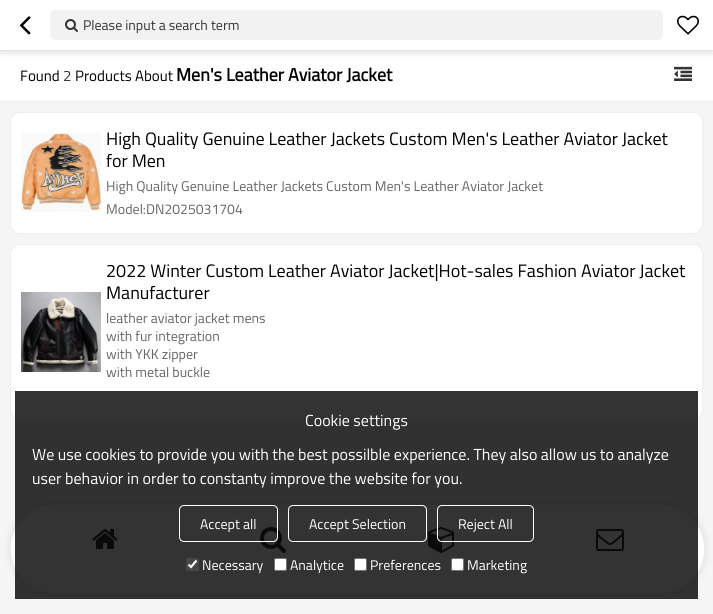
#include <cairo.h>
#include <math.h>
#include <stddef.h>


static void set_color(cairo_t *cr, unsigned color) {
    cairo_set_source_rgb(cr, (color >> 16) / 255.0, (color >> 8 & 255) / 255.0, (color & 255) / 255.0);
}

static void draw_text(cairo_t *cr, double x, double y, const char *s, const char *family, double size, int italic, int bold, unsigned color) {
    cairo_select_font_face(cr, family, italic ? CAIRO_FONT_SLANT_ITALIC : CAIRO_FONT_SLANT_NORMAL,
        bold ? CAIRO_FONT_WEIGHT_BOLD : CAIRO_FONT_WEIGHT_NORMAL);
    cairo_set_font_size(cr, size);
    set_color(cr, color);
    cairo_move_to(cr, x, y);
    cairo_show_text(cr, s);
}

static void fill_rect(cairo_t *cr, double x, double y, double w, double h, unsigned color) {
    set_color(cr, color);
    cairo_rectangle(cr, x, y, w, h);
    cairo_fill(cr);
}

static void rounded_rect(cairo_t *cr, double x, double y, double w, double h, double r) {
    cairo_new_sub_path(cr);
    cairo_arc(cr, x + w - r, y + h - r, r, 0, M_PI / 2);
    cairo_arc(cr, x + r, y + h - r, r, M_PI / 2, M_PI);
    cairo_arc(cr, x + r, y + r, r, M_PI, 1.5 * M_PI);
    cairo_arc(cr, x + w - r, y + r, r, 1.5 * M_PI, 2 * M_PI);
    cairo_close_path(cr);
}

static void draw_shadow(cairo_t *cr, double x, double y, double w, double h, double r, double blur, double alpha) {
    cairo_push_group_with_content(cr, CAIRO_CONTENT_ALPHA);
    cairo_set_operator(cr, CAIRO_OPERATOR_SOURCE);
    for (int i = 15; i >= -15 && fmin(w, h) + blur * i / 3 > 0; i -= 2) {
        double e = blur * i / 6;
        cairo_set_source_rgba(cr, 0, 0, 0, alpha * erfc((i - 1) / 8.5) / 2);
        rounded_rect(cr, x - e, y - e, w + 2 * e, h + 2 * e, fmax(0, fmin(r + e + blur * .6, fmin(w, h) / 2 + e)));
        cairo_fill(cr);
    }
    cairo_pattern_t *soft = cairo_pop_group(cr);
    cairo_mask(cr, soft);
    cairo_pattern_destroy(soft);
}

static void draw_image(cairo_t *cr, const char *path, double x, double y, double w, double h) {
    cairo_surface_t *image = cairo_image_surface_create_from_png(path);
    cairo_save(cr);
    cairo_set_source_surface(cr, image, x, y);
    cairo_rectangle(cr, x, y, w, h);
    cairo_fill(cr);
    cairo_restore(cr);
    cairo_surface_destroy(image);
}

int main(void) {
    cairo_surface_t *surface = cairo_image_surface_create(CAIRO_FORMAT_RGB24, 713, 614);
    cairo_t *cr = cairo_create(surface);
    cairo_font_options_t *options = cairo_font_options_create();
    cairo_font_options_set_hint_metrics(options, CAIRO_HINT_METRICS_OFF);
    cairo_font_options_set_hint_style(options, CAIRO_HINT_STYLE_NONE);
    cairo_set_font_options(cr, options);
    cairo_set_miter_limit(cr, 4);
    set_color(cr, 0xF5F5F5);
    cairo_paint(cr);
    fill_rect(cr, 0, 51, 713, 50, 0xFFFFFF);
    set_color(cr, 0x000000);
    draw_shadow(cr, 0, 3, 713, 51, 0, 2.5, 0.1);
    fill_rect(cr, 0, 0, 713, 50, 0xFFFFFF);
    fill_rect(cr, 0, 50, 713, 1, 0xE5E5E5);
    draw_image(cr, "assets/img1.png", 19, 16, 12, 19);
    set_color(cr, 0xF2F2F2);
    rounded_rect(cr, 50, 10, 613, 30, 5);
    cairo_fill(cr);
    draw_image(cr, "assets/img2.png", 65, 19, 13, 13);
    draw_text(cr, 83, 30, "Please input a search term", "Titillium Web", 14, 0, 0, 0x333333);
    draw_image(cr, "assets/img3.png", 677, 15, 22, 20);
    fill_rect(cr, 0, 101, 713, 1, 0xEEEEEE);
    draw_text(cr, 20, 81, "Found", "Titillium Web", 15, 0, 0, 0x000000);
    draw_text(cr, 63, 81, "2", "Titillium Web", 15, 0, 0, 0x333333);
    draw_text(cr, 75, 81, "Products About", "Titillium Web", 15, 0, 0, 0x000000);
    draw_text(cr, 176, 81, "Men's Leather Aviator Jacket", "Titillium Web", 18, 0, 1, 0x000000);
    draw_image(cr, "assets/img4.png", 674, 66, 18, 15);
    set_color(cr, 0xFFFFFF);
    rounded_rect(cr, 10.5, 112.5, 692, 121, 9.5);
    cairo_fill_preserve(cr);
    set_color(cr, 0xEEEEEE);
    cairo_set_line_width(cr, 1);
    cairo_stroke(cr);
    draw_image(cr, "assets/img5.png", 21, 133, 80, 79);
    draw_text(cr, 106, 145, "High Quality Genuine Leather Jackets Custom Men's Leather Aviator Jacket", "Titillium Web", 18, 0, 0, 0x000000);
    draw_text(cr, 106, 167, "for Men", "Titillium Web", 18, 0, 0, 0x000000);
    draw_text(cr, 106, 191, "High Quality Genuine Leather Jackets Custom Men's Leather Aviator Jacket", "Titillium Web", 14, 0, 0, 0x666666);
    draw_text(cr, 106, 214, "Model:DN2025031704", "Titillium Web", 14, 0, 0, 0x666666);
    set_color(cr, 0xFFFFFF);
    rounded_rect(cr, 10.5, 244.5, 692, 175, 9.5);
    cairo_fill_preserve(cr);
    set_color(cr, 0xEEEEEE);
    cairo_stroke(cr);
    draw_image(cr, "assets/img6.png", 21, 292, 80, 80);
    draw_text(cr, 106, 277, "2022 Winter Custom Leather Aviator Jacket|Hot-sales Fashion Aviator Jacket", "Titillium Web", 18, 0, 0, 0x000000);
    draw_text(cr, 106, 299, "Manufacturer", "Titillium Web", 18, 0, 0, 0x000000);
    draw_text(cr, 106, 323, "leather aviator jacket mens", "Titillium Web", 14, 0, 0, 0x666666);
    draw_text(cr, 106, 341, "with fur integration", "Titillium Web", 14, 0, 0, 0x666666);
    draw_text(cr, 106, 359, "with YKK zipper", "Titillium Web", 14, 0, 0, 0x666666);
    draw_text(cr, 106, 377, "with metal buckle", "Titillium Web", 14, 0, 0, 0x666666);
    set_color(cr, 0x000000);
    draw_shadow(cr, 10, 504, 695, 90, 45, 4, 0.1);
    set_color(cr, 0xFFFFFF);
    rounded_rect(cr, 10.5, 504.5, 694, 89, 44.5);
    cairo_fill_preserve(cr);
    set_color(cr, 0xEEEEEE);
    cairo_stroke(cr);
    draw_image(cr, "assets/img7.png", 92, 529, 26, 20);
    draw_image(cr, "assets/img8.png", 260, 527, 26, 26);
    draw_image(cr, "assets/img9.png", 428, 527, 26, 26);
    draw_image(cr, "assets/img10.png", 596, 529, 28, 22);
    cairo_set_source_rgba(cr, 0, 0, 0, 0.8);
    cairo_rectangle(cr, 15, 391, 683, 208);
    cairo_fill(cr);
    draw_text(cr, 305, 426, "Cookie settings", "Titillium Web", 16, 0, 0, 0xFFFFFF);
    draw_text(cr, 32, 460, "We use cookies to provide you with the best possilble experience. They also allow us to analyze", "Titillium Web", 16, 0, 0, 0xFFFFFF);
    draw_text(cr, 32, 484, "user behavior in order to constanty improve the website for you.", "Titillium Web", 16, 0, 0, 0xFFFFFF);
    rounded_rect(cr, 179.5, 505.5, 98, 36, 4.5);
    cairo_stroke(cr);
    draw_text(cr, 200, 529, "Accept all", "Titillium Web", 14, 0, 0, 0xFFFFFF);
    rounded_rect(cr, 288.5, 505.5, 138, 36, 4.5);
    cairo_stroke(cr);
    draw_text(cr, 309, 529, "Accept Selection", "Titillium Web", 14, 0, 0, 0xFFFFFF);
    rounded_rect(cr, 437.5, 505.5, 96, 36, 4.5);
    cairo_stroke(cr);
    draw_text(cr, 458, 529, "Reject All", "Titillium Web", 14, 0, 0, 0xFFFFFF);
    set_color(cr, 0x474747);
    rounded_rect(cr, 186, 558, 13, 13, 2);
    cairo_fill(cr);
    cairo_new_path(cr);
    cairo_move_to(cr, 188.5, 564.5);
    cairo_line_to(cr, 191, 567);
    cairo_line_to(cr, 196.5, 560.5);
    set_color(cr, 0xFFFFFF);
    cairo_set_line_width(cr, 2.1);
    cairo_stroke(cr);
    draw_text(cr, 202, 570, "Necessary", "Titillium Web", 14, 0, 0, 0xFFFFFF);
    rounded_rect(cr, 274.5, 558.5, 12, 12, 1.5);
    cairo_fill_preserve(cr);
    set_color(cr, 0x767676);
    cairo_set_line_width(cr, 1);
    cairo_stroke(cr);
    draw_text(cr, 290, 570, "Analytice", "Titillium Web", 14, 0, 0, 0xFFFFFF);
    rounded_rect(cr, 354.5, 558.5, 12, 12, 1.5);
    cairo_fill_preserve(cr);
    set_color(cr, 0x767676);
    cairo_stroke(cr);
    draw_text(cr, 370, 570, "Preferences", "Titillium Web", 14, 0, 0, 0xFFFFFF);
    rounded_rect(cr, 451.5, 558.5, 12, 12, 1.5);
    cairo_fill_preserve(cr);
    set_color(cr, 0x767676);
    cairo_stroke(cr);
    draw_text(cr, 467, 570, "Marketing", "Titillium Web", 14, 0, 0, 0xFFFFFF);
    cairo_surface_write_to_png(surface, "output.png");
    cairo_font_options_destroy(options);
    cairo_destroy(cr);
    cairo_surface_destroy(surface);
    return 0;
}
